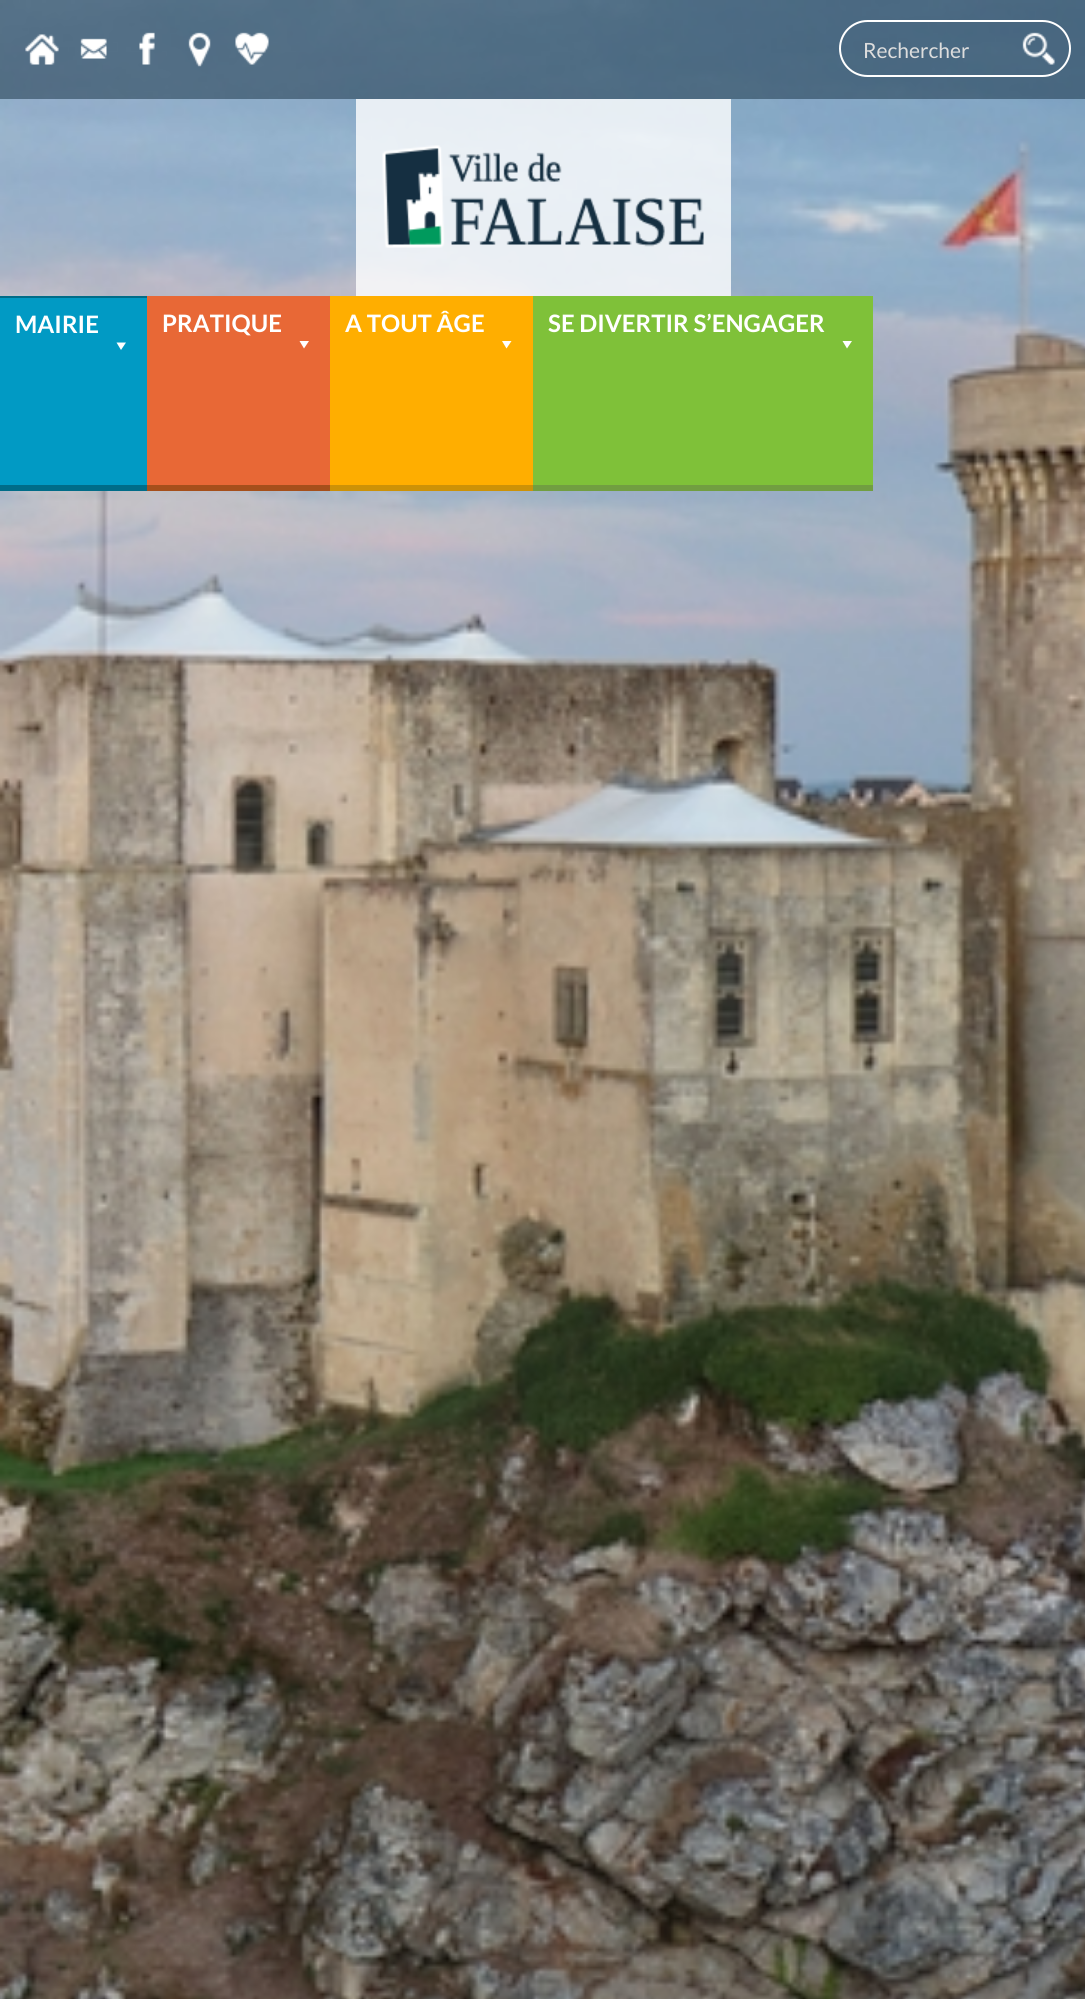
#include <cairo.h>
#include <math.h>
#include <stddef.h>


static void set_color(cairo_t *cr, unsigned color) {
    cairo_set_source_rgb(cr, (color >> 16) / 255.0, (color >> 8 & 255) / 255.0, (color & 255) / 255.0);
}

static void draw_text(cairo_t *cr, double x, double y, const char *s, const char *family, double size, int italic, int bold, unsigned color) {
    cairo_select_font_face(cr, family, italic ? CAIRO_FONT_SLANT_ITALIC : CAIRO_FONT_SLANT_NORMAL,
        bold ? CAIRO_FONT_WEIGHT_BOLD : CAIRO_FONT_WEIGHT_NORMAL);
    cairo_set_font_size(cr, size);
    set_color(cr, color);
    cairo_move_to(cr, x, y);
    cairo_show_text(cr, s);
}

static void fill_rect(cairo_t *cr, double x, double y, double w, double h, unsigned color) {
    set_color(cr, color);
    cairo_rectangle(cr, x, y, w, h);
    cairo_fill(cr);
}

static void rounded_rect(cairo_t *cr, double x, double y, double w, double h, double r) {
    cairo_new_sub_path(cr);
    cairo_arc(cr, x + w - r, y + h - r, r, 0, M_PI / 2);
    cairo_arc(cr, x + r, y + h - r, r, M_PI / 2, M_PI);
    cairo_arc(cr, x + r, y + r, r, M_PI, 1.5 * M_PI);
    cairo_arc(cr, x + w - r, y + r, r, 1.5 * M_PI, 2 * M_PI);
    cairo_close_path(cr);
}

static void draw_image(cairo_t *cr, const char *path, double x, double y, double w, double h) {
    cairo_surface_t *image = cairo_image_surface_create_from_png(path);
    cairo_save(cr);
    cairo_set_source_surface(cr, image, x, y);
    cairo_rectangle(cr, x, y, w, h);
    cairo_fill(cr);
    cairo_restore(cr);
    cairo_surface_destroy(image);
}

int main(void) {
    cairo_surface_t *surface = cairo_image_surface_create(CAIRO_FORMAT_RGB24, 1085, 1999);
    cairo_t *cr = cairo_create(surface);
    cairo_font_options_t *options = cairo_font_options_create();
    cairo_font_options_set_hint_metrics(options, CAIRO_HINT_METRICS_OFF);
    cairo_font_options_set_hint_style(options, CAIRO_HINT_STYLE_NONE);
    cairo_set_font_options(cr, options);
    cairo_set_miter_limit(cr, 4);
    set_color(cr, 0xFFFFFF);
    cairo_paint(cr);
    draw_image(cr, "assets/img1.png", 0, 0, 1085, 1999);
    cairo_set_source_rgba(cr, 0.082, 0.184, 0.255, 0.5);
    cairo_rectangle(cr, 0, 0, 1085, 99);
    cairo_fill(cr);
    draw_image(cr, "assets/img2.png", 25, 34, 34, 31);
    draw_image(cr, "assets/img3.png", 80, 38, 27, 21);
    draw_image(cr, "assets/img4.png", 139, 32, 16, 33);
    draw_image(cr, "assets/img5.png", 188, 32, 23, 35);
    draw_image(cr, "assets/img6.png", 235, 32, 34, 33);
    rounded_rect(cr, 840, 21, 230, 55, 27.5);
    set_color(cr, 0xFFFFFF);
    cairo_stroke(cr);
    draw_text(cr, 863, 58, "Rechercher", "Lato", 21, 0, 0, 0xDDDDDD);
    draw_image(cr, "assets/img7.png", 1022, 32, 33, 33);
    cairo_set_source_rgba(cr, 1, 1, 1, 0.8);
    cairo_rectangle(cr, 356, 99, 375, 197);
    cairo_fill(cr);
    draw_image(cr, "assets/img8.png", 382, 145, 322, 103);
    fill_rect(cr, 0, 298, 147, 187, 0x019AC4);
    fill_rect(cr, 0, 296, 147, 2, 0x006C88);
    fill_rect(cr, 0, 485, 147, 6, 0x006C88);
    draw_text(cr, 15, 333, "MAIRIE", "Lato", 24, 0, 1, 0xFFFFFF);
    cairo_new_path(cr);
    cairo_move_to(cr, 126, 342.5);
    cairo_line_to(cr, 121, 350);
    cairo_line_to(cr, 116.5, 342.5);
    cairo_close_path(cr);
    cairo_fill(cr);
    fill_rect(cr, 147, 296, 183, 189, 0xE86836);
    fill_rect(cr, 147, 485, 183, 6, 0xA54F1B);
    draw_text(cr, 162, 332, "PRATIQUE", "Lato", 24, 0, 1, 0xFFFFFF);
    cairo_new_path(cr);
    cairo_move_to(cr, 309, 341);
    cairo_line_to(cr, 304, 348.5);
    cairo_line_to(cr, 299.5, 341);
    cairo_close_path(cr);
    cairo_fill(cr);
    fill_rect(cr, 330, 296, 203, 189, 0xFFAE00);
    fill_rect(cr, 330, 485, 203, 6, 0xCC9207);
    draw_text(cr, 345, 332, "A TOUT ÂGE", "Lato", 24, 0, 1, 0xFFFFFF);
    cairo_new_path(cr);
    cairo_move_to(cr, 511.5, 341);
    cairo_line_to(cr, 506.5, 348.5);
    cairo_line_to(cr, 502, 341);
    cairo_close_path(cr);
    cairo_fill(cr);
    fill_rect(cr, 533, 296, 340, 189, 0x7FC139);
    fill_rect(cr, 533, 485, 340, 6, 0x719E41);
    draw_text(cr, 548, 332, "SE DIVERTIR S’ENGAGER", "Lato", 24, 0, 1, 0xFFFFFF);
    cairo_new_path(cr);
    cairo_move_to(cr, 852, 341);
    cairo_line_to(cr, 847, 348.5);
    cairo_line_to(cr, 842.5, 341);
    cairo_close_path(cr);
    cairo_fill(cr);
    cairo_surface_write_to_png(surface, "output.png");
    cairo_font_options_destroy(options);
    cairo_destroy(cr);
    cairo_surface_destroy(surface);
    return 0;
}
